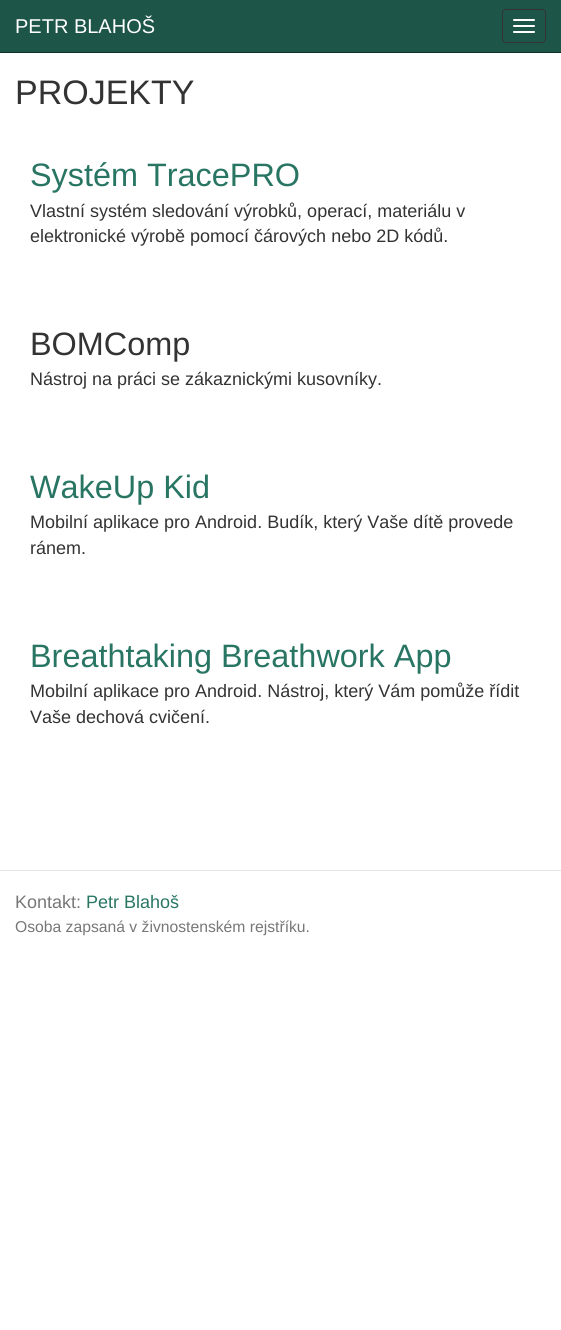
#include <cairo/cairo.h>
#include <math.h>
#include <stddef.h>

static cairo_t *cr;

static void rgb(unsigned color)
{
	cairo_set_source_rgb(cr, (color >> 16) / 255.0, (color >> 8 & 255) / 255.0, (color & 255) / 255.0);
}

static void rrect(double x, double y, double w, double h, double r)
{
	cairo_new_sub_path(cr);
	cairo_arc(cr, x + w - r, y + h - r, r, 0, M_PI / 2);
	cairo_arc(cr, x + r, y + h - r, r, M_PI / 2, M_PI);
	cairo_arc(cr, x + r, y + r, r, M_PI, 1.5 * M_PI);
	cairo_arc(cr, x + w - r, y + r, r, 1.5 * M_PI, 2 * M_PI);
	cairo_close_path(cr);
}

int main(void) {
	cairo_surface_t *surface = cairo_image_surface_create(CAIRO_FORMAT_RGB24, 561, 1330);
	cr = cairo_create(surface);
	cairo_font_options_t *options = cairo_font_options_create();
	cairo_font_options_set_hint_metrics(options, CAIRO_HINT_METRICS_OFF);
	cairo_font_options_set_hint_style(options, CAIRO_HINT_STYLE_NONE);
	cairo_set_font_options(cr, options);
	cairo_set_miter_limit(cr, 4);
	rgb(0xffffff);
	cairo_paint(cr);
	rgb(0x1d5548);
	cairo_rectangle(cr, 0, 0, 561, 52);
	cairo_fill(cr);
	rgb(0x102f28);
	cairo_rectangle(cr, 0, 52, 561, 1);
	cairo_fill(cr);
	rrect(502.5, 9.5, 43, 33, 3.5);
	rgb(0x333333);
	cairo_set_line_width(cr, 1);
	cairo_stroke(cr);
	rgb(0xffffff);
	rrect(513, 19, 22, 2, 1);
	cairo_fill(cr);
	rrect(513, 25, 22, 2, 1);
	cairo_fill(cr);
	rrect(513, 31, 22, 2, 1);
	cairo_fill(cr);
	rgb(0xe5e5e5);
	cairo_rectangle(cr, 0, 870, 561, 1);
	cairo_fill(cr);
	cairo_select_font_face(cr, "Liberation Sans", CAIRO_FONT_SLANT_NORMAL, CAIRO_FONT_WEIGHT_NORMAL);
	cairo_set_font_size(cr, 20);
	rgb(0xffffff);
	cairo_move_to(cr, 15, 33);
	cairo_show_text(cr, "PETR BLAHOŠ");
	cairo_set_font_size(cr, 34);
	rgb(0x333333);
	cairo_move_to(cr, 15, 104);
	cairo_show_text(cr, "PROJEKTY");
	cairo_set_font_size(cr, 32.4);
	rgb(0x287563);
	cairo_move_to(cr, 30, 186);
	cairo_show_text(cr, "Systém TracePRO");
	cairo_set_font_size(cr, 18);
	rgb(0x333333);
	cairo_move_to(cr, 30, 217);
	cairo_show_text(cr, "Vlastní systém sledování výrobků, operací, materiálu v");
	cairo_move_to(cr, 30, 242);
	cairo_show_text(cr, "elektronické výrobě pomocí čárových nebo 2D kódů.");
	cairo_set_font_size(cr, 32.4);
	cairo_move_to(cr, 30, 355);
	cairo_show_text(cr, "BOMComp");
	cairo_set_font_size(cr, 18);
	cairo_move_to(cr, 30, 385);
	cairo_show_text(cr, "Nástroj na práci se zákaznickými kusovníky.");
	cairo_set_font_size(cr, 32.4);
	rgb(0x287563);
	cairo_move_to(cr, 30, 498);
	cairo_show_text(cr, "WakeUp Kid");
	cairo_set_font_size(cr, 18);
	rgb(0x333333);
	cairo_move_to(cr, 30, 528);
	cairo_show_text(cr, "Mobilní aplikace pro Android. Budík, který Vaše dítě provede");
	cairo_move_to(cr, 30, 554);
	cairo_show_text(cr, "ránem.");
	cairo_set_font_size(cr, 32.4);
	rgb(0x287563);
	cairo_move_to(cr, 30, 667);
	cairo_show_text(cr, "Breathtaking Breathwork App");
	cairo_set_font_size(cr, 18);
	rgb(0x333333);
	cairo_move_to(cr, 30, 697);
	cairo_show_text(cr, "Mobilní aplikace pro Android. Nástroj, který Vám pomůže řídit");
	cairo_move_to(cr, 30, 723);
	cairo_show_text(cr, "Vaše dechová cvičení.");
	rgb(0x777777);
	cairo_move_to(cr, 15, 908);
	cairo_show_text(cr, "Kontakt:");
	rgb(0x287563);
	cairo_move_to(cr, 86, 908);
	cairo_show_text(cr, "Petr Blahoš");
	cairo_set_font_size(cr, 15.7);
	rgb(0x777777);
	cairo_move_to(cr, 15, 932);
	cairo_show_text(cr, "Osoba zapsaná v živnostenském rejstříku.");
	cairo_surface_write_to_png(surface, "page.png");
	cairo_font_options_destroy(options);
	cairo_destroy(cr);
	cairo_surface_destroy(surface);
	return 0;
}
